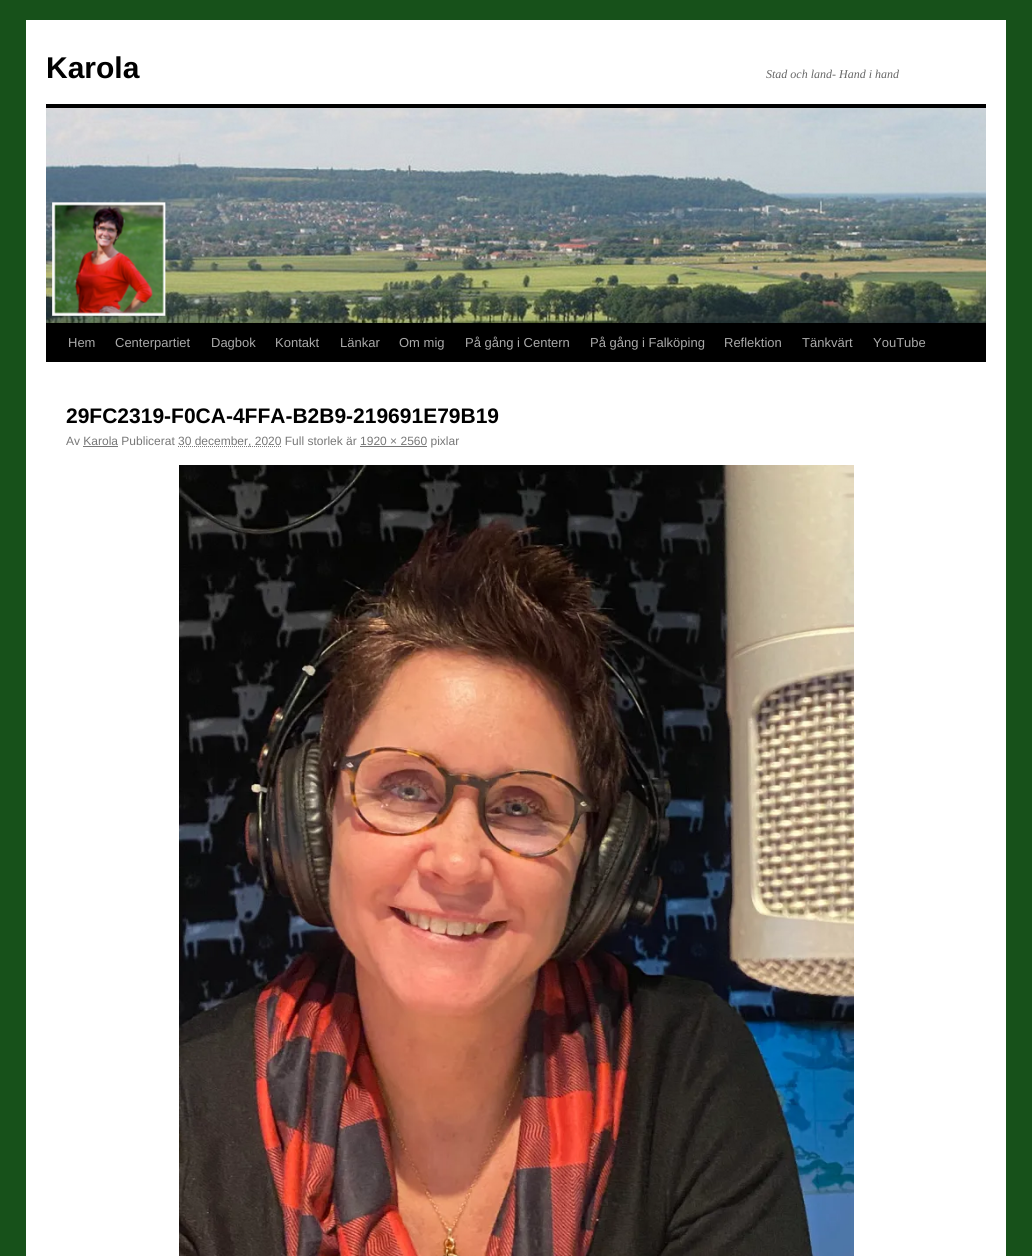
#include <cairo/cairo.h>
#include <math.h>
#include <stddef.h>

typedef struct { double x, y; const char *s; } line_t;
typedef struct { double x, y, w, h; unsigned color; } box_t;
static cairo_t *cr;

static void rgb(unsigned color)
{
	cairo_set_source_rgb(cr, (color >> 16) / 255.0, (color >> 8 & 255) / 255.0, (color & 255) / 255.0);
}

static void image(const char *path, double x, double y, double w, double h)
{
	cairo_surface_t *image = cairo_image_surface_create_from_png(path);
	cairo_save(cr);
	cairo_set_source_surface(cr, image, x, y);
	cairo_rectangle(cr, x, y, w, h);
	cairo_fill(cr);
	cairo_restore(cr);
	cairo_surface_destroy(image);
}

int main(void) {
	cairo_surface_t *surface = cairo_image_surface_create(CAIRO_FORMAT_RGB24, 1032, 1256);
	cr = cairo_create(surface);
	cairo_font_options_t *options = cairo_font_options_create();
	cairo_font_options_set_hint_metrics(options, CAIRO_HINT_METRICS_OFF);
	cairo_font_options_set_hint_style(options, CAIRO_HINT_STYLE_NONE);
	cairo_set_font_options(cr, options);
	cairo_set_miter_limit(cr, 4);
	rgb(0x17511a);
	cairo_paint(cr);
	{
		static const box_t items[] = {
			{26, 20, 980, 1236, 0xffffff},
			{46, 104, 940, 4, 0x000000},
			{46, 323, 940, 39, 0x000000},
		};
		for (size_t i = 0; i < sizeof items / sizeof *items; i++) {
			rgb(items[i].color);
			cairo_rectangle(cr, items[i].x, items[i].y, items[i].w, items[i].h);
			cairo_fill(cr);
		}
	}
	image("img/1.png", 46, 108, 940, 215);
	cairo_new_path(cr);
	cairo_move_to(cr, 178, 446.5);
	cairo_line_to(cr, 281.5, 446.5);
	rgb(0x777777);
	cairo_set_line_width(cr, 1);
	cairo_set_dash(cr, (double[]){1, 1}, 2, 0);
	cairo_stroke(cr);
	cairo_rectangle(cr, 83, 446, 35, 1);
	cairo_fill(cr);
	cairo_rectangle(cr, 360, 446, 67, 1);
	cairo_fill(cr);
	image("img/2.png", 179, 465, 675, 791);
	cairo_select_font_face(cr, "Liberation Sans", CAIRO_FONT_SLANT_NORMAL, CAIRO_FONT_WEIGHT_BOLD);
	cairo_set_font_size(cr, 30);
	rgb(0x000000);
	cairo_move_to(cr, 46, 78);
	cairo_show_text(cr, "Karola");
	cairo_select_font_face(cr, "Liberation Serif", CAIRO_FONT_SLANT_ITALIC, CAIRO_FONT_WEIGHT_NORMAL);
	cairo_set_font_size(cr, 12);
	rgb(0x666666);
	cairo_move_to(cr, 766, 78);
	cairo_show_text(cr, "Stad och land- Hand i hand");
	cairo_select_font_face(cr, "Liberation Sans", CAIRO_FONT_SLANT_NORMAL, CAIRO_FONT_WEIGHT_NORMAL);
	cairo_set_font_size(cr, 13);
	rgb(0xaaaaaa);
	{
		static const line_t items[] = {
			{68, 347, "Hem"},
			{115, 347, "Centerpartiet"},
			{211, 347, "Dagbok"},
			{275, 347, "Kontakt"},
			{340, 347, "Länkar"},
			{399, 347, "Om mig"},
			{465, 347, "På gång i Centern"},
			{590, 347, "På gång i Falköping"},
			{724, 347, "Reflektion"},
			{802, 347, "Tänkvärt"},
			{873, 347, "YouTube"},
		};
		for (size_t i = 0; i < sizeof items / sizeof *items; i++) {
			cairo_move_to(cr, items[i].x, items[i].y);
			cairo_show_text(cr, items[i].s);
		}
	}
	cairo_select_font_face(cr, "Liberation Sans", CAIRO_FONT_SLANT_NORMAL, CAIRO_FONT_WEIGHT_BOLD);
	cairo_set_font_size(cr, 21);
	rgb(0x000000);
	cairo_move_to(cr, 66, 423);
	cairo_show_text(cr, "29FC2319-F0CA-4FFA-B2B9-219691E79B19");
	cairo_select_font_face(cr, "Liberation Sans", CAIRO_FONT_SLANT_NORMAL, CAIRO_FONT_WEIGHT_NORMAL);
	cairo_set_font_size(cr, 12);
	rgb(0x777777);
	cairo_move_to(cr, 66, 445);
	cairo_show_text(cr, "Av Karola Publicerat");
	cairo_move_to(cr, 178, 445);
	cairo_show_text(cr, "30 december, 2020 Full storlek är 1920 × 2560 pixlar");
	cairo_surface_write_to_png(surface, "page.png");
	cairo_font_options_destroy(options);
	cairo_destroy(cr);
	cairo_surface_destroy(surface);
	return 0;
}
